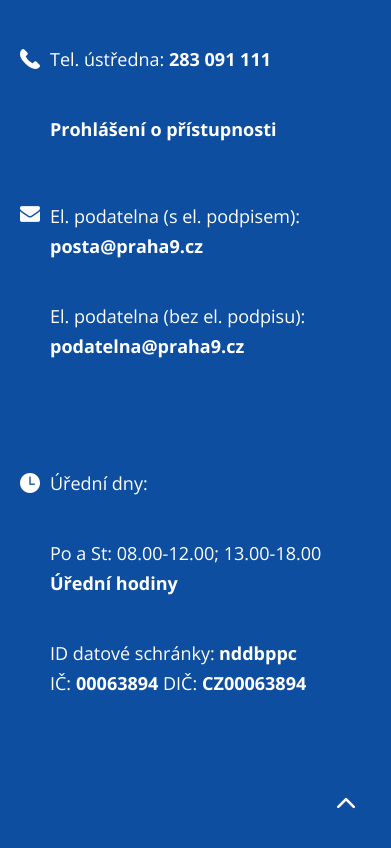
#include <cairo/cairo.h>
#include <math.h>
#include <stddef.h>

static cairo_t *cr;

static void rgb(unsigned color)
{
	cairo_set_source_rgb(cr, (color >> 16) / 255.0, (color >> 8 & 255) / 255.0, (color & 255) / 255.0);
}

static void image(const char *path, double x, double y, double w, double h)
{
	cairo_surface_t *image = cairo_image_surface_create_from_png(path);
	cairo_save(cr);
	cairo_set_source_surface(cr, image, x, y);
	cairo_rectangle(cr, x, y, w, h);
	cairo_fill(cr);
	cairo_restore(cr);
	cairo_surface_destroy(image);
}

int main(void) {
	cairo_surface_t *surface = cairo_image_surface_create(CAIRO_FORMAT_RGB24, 391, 848);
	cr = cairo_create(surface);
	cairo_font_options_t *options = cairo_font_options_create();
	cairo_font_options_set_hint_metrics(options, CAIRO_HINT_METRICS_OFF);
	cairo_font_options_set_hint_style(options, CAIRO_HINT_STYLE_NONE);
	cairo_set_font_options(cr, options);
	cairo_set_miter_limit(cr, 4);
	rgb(0x0d4ea0);
	cairo_paint(cr);
	image("img/1.png", 20, 49, 20, 20);
	image("img/2.png", 20, 206, 20, 16);
	image("img/3.png", 20, 473, 20, 20);
	image("img/4.png", 337, 797, 18, 12);
	cairo_select_font_face(cr, "Open Sans", CAIRO_FONT_SLANT_NORMAL, CAIRO_FONT_WEIGHT_NORMAL);
	cairo_set_font_size(cr, 18);
	rgb(0xffffff);
	cairo_move_to(cr, 50, 66);
	cairo_show_text(cr, "Tel. ústředna:");
	cairo_select_font_face(cr, "Open Sans", CAIRO_FONT_SLANT_NORMAL, CAIRO_FONT_WEIGHT_BOLD);
	cairo_move_to(cr, 169, 66);
	cairo_show_text(cr, "283 091 111");
	cairo_move_to(cr, 50, 136);
	cairo_show_text(cr, "Prohlášení o přístupnosti");
	cairo_select_font_face(cr, "Open Sans", CAIRO_FONT_SLANT_NORMAL, CAIRO_FONT_WEIGHT_NORMAL);
	cairo_move_to(cr, 50, 223);
	cairo_show_text(cr, "El. podatelna (s el. podpisem):");
	cairo_select_font_face(cr, "Open Sans", CAIRO_FONT_SLANT_NORMAL, CAIRO_FONT_WEIGHT_BOLD);
	cairo_move_to(cr, 50, 253);
	cairo_show_text(cr, "posta@praha9.cz");
	cairo_select_font_face(cr, "Open Sans", CAIRO_FONT_SLANT_NORMAL, CAIRO_FONT_WEIGHT_NORMAL);
	cairo_move_to(cr, 50, 323);
	cairo_show_text(cr, "El. podatelna (bez el. podpisu):");
	cairo_select_font_face(cr, "Open Sans", CAIRO_FONT_SLANT_NORMAL, CAIRO_FONT_WEIGHT_BOLD);
	cairo_move_to(cr, 50, 353);
	cairo_show_text(cr, "podatelna@praha9.cz");
	cairo_select_font_face(cr, "Open Sans", CAIRO_FONT_SLANT_NORMAL, CAIRO_FONT_WEIGHT_NORMAL);
	cairo_move_to(cr, 50, 490);
	cairo_show_text(cr, "Úřední dny:");
	cairo_move_to(cr, 50, 560);
	cairo_show_text(cr, "Po a St: 08.00-12.00; 13.00-18.00");
	cairo_select_font_face(cr, "Open Sans", CAIRO_FONT_SLANT_NORMAL, CAIRO_FONT_WEIGHT_BOLD);
	cairo_move_to(cr, 50, 590);
	cairo_show_text(cr, "Úřední hodiny");
	cairo_select_font_face(cr, "Open Sans", CAIRO_FONT_SLANT_NORMAL, CAIRO_FONT_WEIGHT_NORMAL);
	cairo_move_to(cr, 50, 660);
	cairo_show_text(cr, "ID datové schránky:");
	cairo_select_font_face(cr, "Open Sans", CAIRO_FONT_SLANT_NORMAL, CAIRO_FONT_WEIGHT_BOLD);
	cairo_move_to(cr, 219, 660);
	cairo_show_text(cr, "nddbppc");
	cairo_select_font_face(cr, "Open Sans", CAIRO_FONT_SLANT_NORMAL, CAIRO_FONT_WEIGHT_NORMAL);
	cairo_move_to(cr, 50, 690);
	cairo_show_text(cr, "IČ:");
	cairo_select_font_face(cr, "Open Sans", CAIRO_FONT_SLANT_NORMAL, CAIRO_FONT_WEIGHT_BOLD);
	cairo_move_to(cr, 76, 690);
	cairo_show_text(cr, "00063894");
	cairo_select_font_face(cr, "Open Sans", CAIRO_FONT_SLANT_NORMAL, CAIRO_FONT_WEIGHT_NORMAL);
	cairo_move_to(cr, 163, 690);
	cairo_show_text(cr, "DIČ:");
	cairo_select_font_face(cr, "Open Sans", CAIRO_FONT_SLANT_NORMAL, CAIRO_FONT_WEIGHT_BOLD);
	cairo_move_to(cr, 202, 690);
	cairo_show_text(cr, "CZ00063894");
	cairo_surface_write_to_png(surface, "page.png");
	cairo_font_options_destroy(options);
	cairo_destroy(cr);
	cairo_surface_destroy(surface);
	return 0;
}
